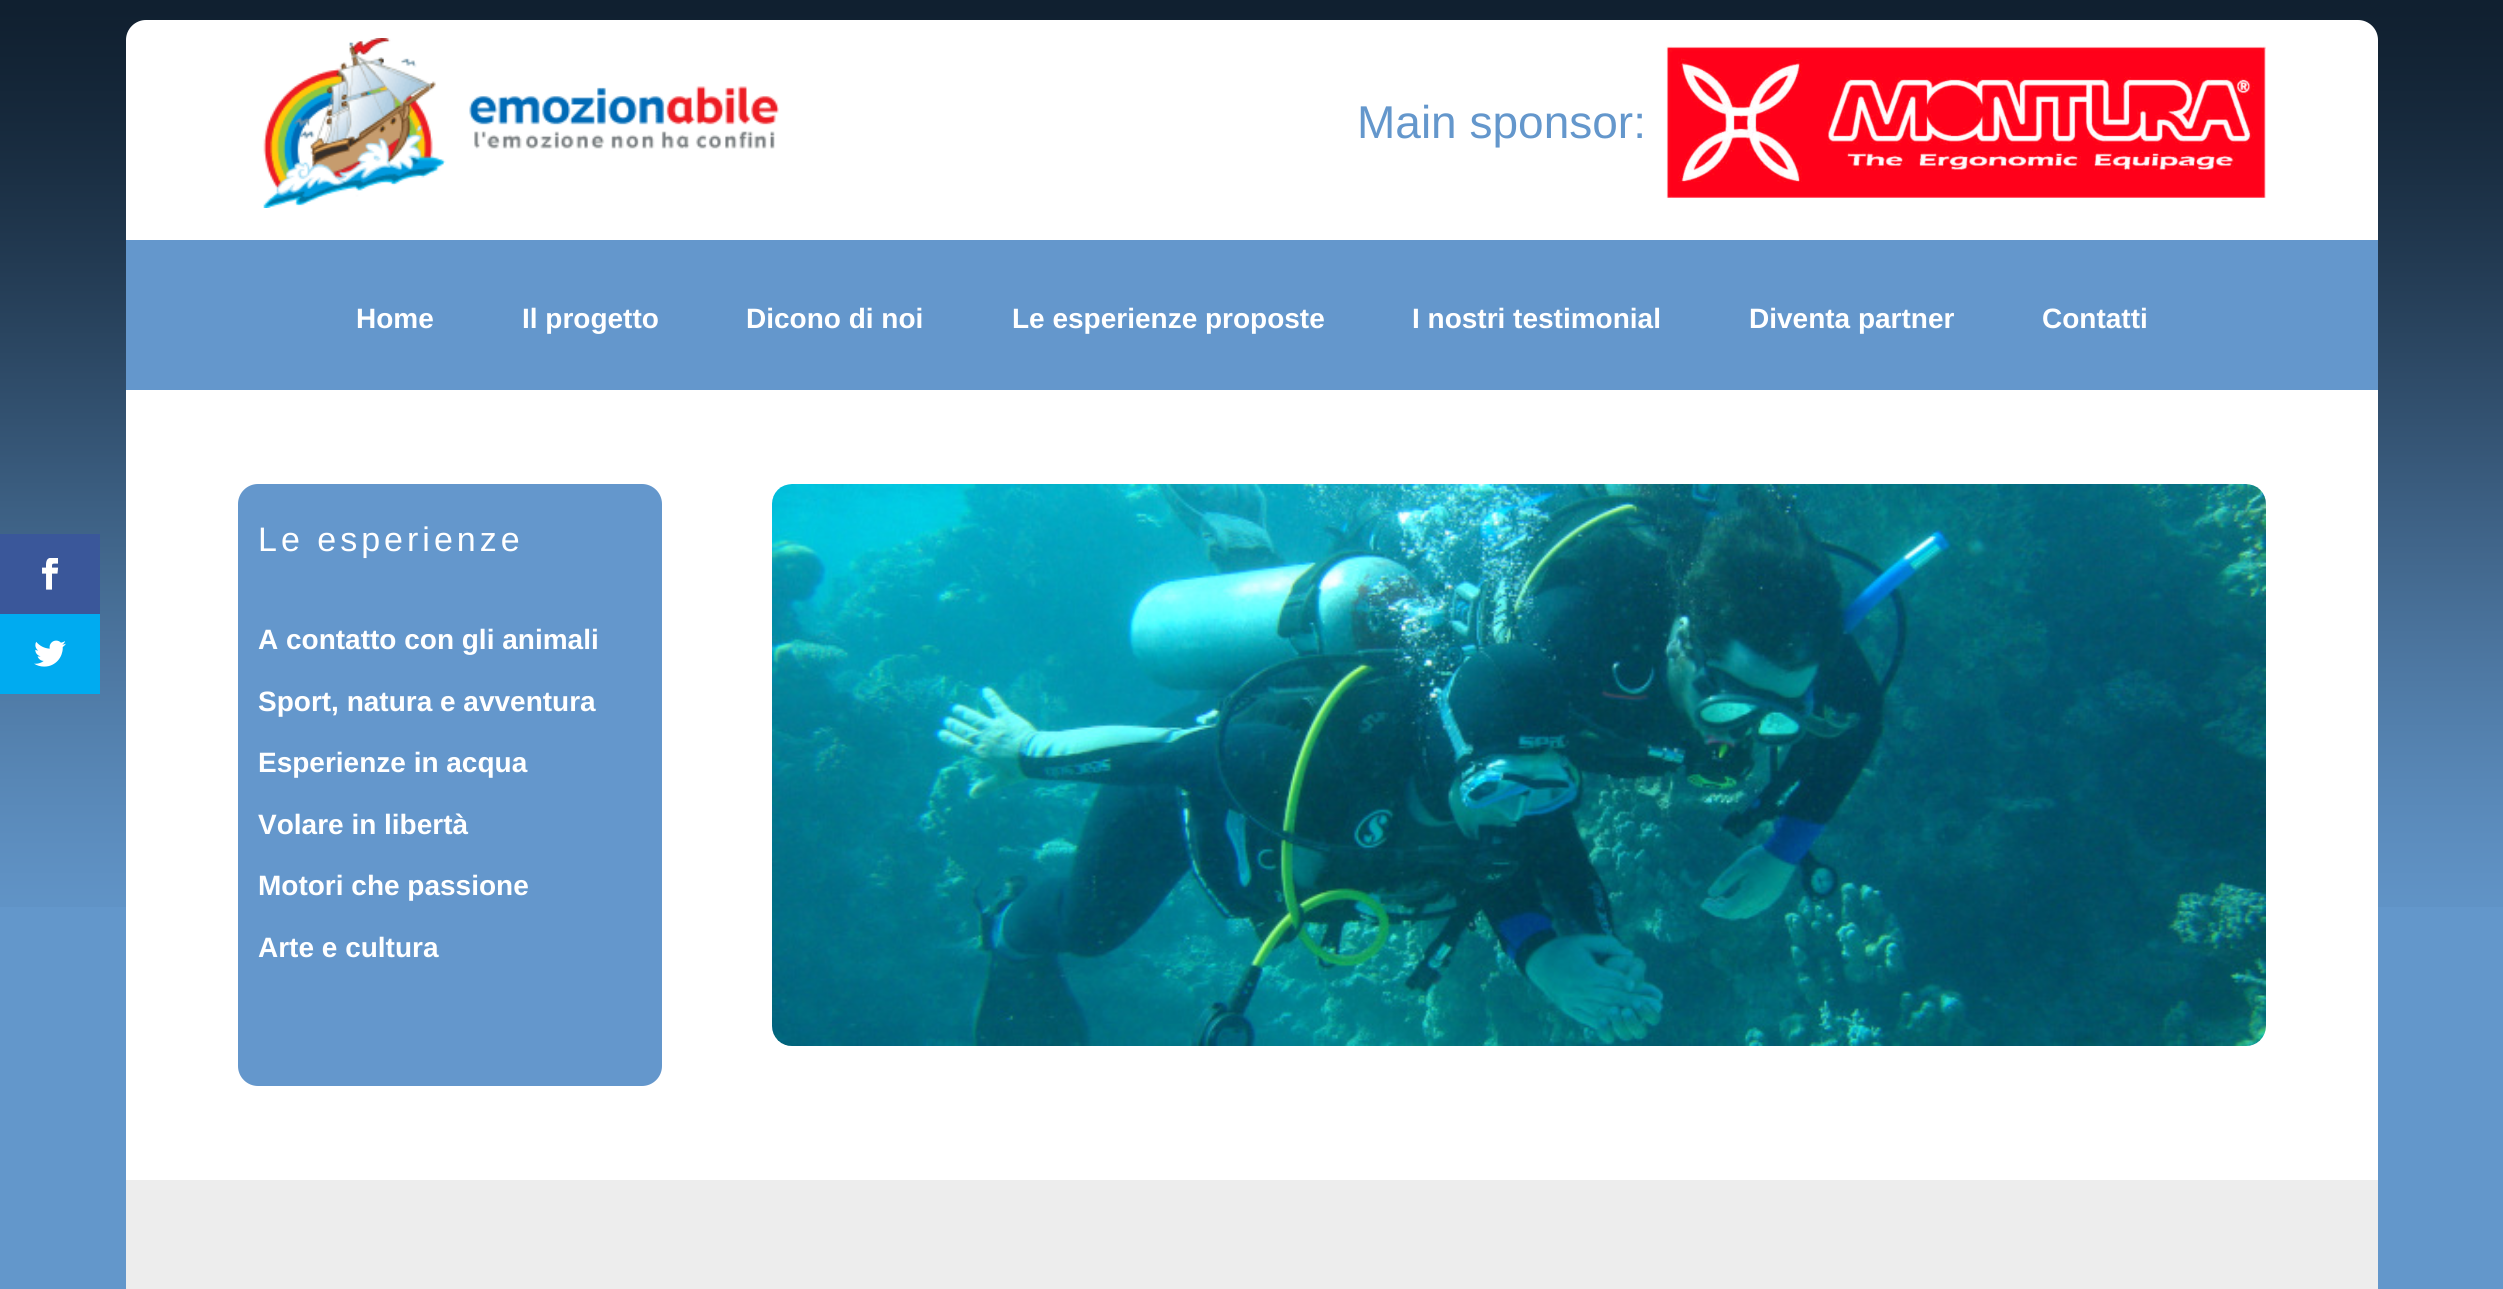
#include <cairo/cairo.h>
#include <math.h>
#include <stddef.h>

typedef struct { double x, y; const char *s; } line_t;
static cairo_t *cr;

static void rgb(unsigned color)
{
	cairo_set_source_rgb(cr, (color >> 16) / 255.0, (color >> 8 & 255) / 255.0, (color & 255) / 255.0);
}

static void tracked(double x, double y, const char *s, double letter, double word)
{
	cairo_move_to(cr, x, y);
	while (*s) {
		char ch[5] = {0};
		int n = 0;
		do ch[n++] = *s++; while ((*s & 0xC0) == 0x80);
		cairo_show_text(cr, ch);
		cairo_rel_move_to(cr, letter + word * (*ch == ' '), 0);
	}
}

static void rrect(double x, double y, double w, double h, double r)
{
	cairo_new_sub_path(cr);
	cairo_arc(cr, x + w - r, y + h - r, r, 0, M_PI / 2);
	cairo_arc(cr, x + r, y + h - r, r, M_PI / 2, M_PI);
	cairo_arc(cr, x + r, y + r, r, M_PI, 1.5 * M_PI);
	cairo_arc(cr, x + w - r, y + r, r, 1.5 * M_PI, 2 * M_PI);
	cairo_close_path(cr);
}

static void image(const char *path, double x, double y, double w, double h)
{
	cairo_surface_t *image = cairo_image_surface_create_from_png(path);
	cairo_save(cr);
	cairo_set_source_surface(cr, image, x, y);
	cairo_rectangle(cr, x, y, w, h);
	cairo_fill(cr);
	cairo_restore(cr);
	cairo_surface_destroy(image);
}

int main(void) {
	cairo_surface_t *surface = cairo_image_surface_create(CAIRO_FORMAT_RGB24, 2503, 1289);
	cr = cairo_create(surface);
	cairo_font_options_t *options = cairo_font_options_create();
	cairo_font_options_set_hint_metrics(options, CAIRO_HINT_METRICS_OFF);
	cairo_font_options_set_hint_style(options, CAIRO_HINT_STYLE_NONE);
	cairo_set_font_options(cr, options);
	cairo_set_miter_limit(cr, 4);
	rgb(0x6397cb);
	cairo_paint(cr);
	image("img/1.png", 0, 0, 2503, 907);
	rgb(0x3a579a);
	cairo_rectangle(cr, 0, 534, 100, 80);
	cairo_fill(cr);
	image("img/2.png", 42, 558, 17, 32);
	rgb(0x00abf0);
	cairo_rectangle(cr, 0, 614, 100, 80);
	cairo_fill(cr);
	image("img/3.png", 34, 640, 32, 27);
	rgb(0xffffff);
	cairo_new_path(cr);
	cairo_move_to(cr, 146, 20);
	cairo_line_to(cr, 2358, 20);
	cairo_curve_to(cr, 2369, 20, 2378, 29, 2378, 40);
	cairo_line_to(cr, 2378, 240);
	cairo_line_to(cr, 126, 240);
	cairo_line_to(cr, 126, 40);
	cairo_curve_to(cr, 126, 29, 135, 20, 146, 20);
	cairo_close_path(cr);
	cairo_fill(cr);
	image("img/4.png", 263, 38, 516, 170);
	image("img/5.png", 1666, 46, 600, 152);
	cairo_rectangle(cr, 126, 390, 2252, 790);
	cairo_fill(cr);
	rgb(0x6497cc);
	cairo_rectangle(cr, 126, 240, 2252, 150);
	cairo_fill(cr);
	rrect(238, 484, 424, 602, 20);
	cairo_fill(cr);
	image("img/6.png", 772, 484, 1494, 562);
	rgb(0xededed);
	cairo_rectangle(cr, 126, 1180, 2252, 109);
	cairo_fill(cr);
	cairo_select_font_face(cr, "Liberation Sans", CAIRO_FONT_SLANT_NORMAL, CAIRO_FONT_WEIGHT_NORMAL);
	cairo_set_font_size(cr, 46);
	rgb(0x6497cc);
	cairo_move_to(cr, 1357, 138);
	cairo_show_text(cr, "Main sponsor:");
	cairo_select_font_face(cr, "Liberation Sans", CAIRO_FONT_SLANT_NORMAL, CAIRO_FONT_WEIGHT_BOLD);
	cairo_set_font_size(cr, 28);
	rgb(0xffffff);
	{
		static const line_t items[] = {
			{356, 328, "Home"},
			{522, 328, "Il progetto"},
			{746, 328, "Dicono di noi"},
			{1012, 328, "Le esperienze proposte"},
			{1412, 328, "I nostri testimonial"},
			{1749, 328, "Diventa partner"},
			{2042, 328, "Contatti"},
		};
		for (size_t i = 0; i < sizeof items / sizeof *items; i++) {
			cairo_move_to(cr, items[i].x, items[i].y);
			cairo_show_text(cr, items[i].s);
		}
	}
	cairo_select_font_face(cr, "Liberation Sans", CAIRO_FONT_SLANT_NORMAL, CAIRO_FONT_WEIGHT_NORMAL);
	cairo_set_font_size(cr, 34);
	tracked(258, 551, "Le esperienze", 4, 0);
	cairo_select_font_face(cr, "Liberation Sans", CAIRO_FONT_SLANT_NORMAL, CAIRO_FONT_WEIGHT_BOLD);
	cairo_set_font_size(cr, 28);
	{
		static const line_t items[] = {
			{258, 649, "A contatto con gli animali"},
			{258, 711, "Sport, natura e avventura"},
			{258, 772, "Esperienze in acqua"},
			{258, 834, "Volare in libertà"},
			{258, 895, "Motori che passione"},
			{258, 957, "Arte e cultura"},
		};
		for (size_t i = 0; i < sizeof items / sizeof *items; i++) {
			cairo_move_to(cr, items[i].x, items[i].y);
			cairo_show_text(cr, items[i].s);
		}
	}
	cairo_surface_write_to_png(surface, "page.png");
	cairo_font_options_destroy(options);
	cairo_destroy(cr);
	cairo_surface_destroy(surface);
	return 0;
}
